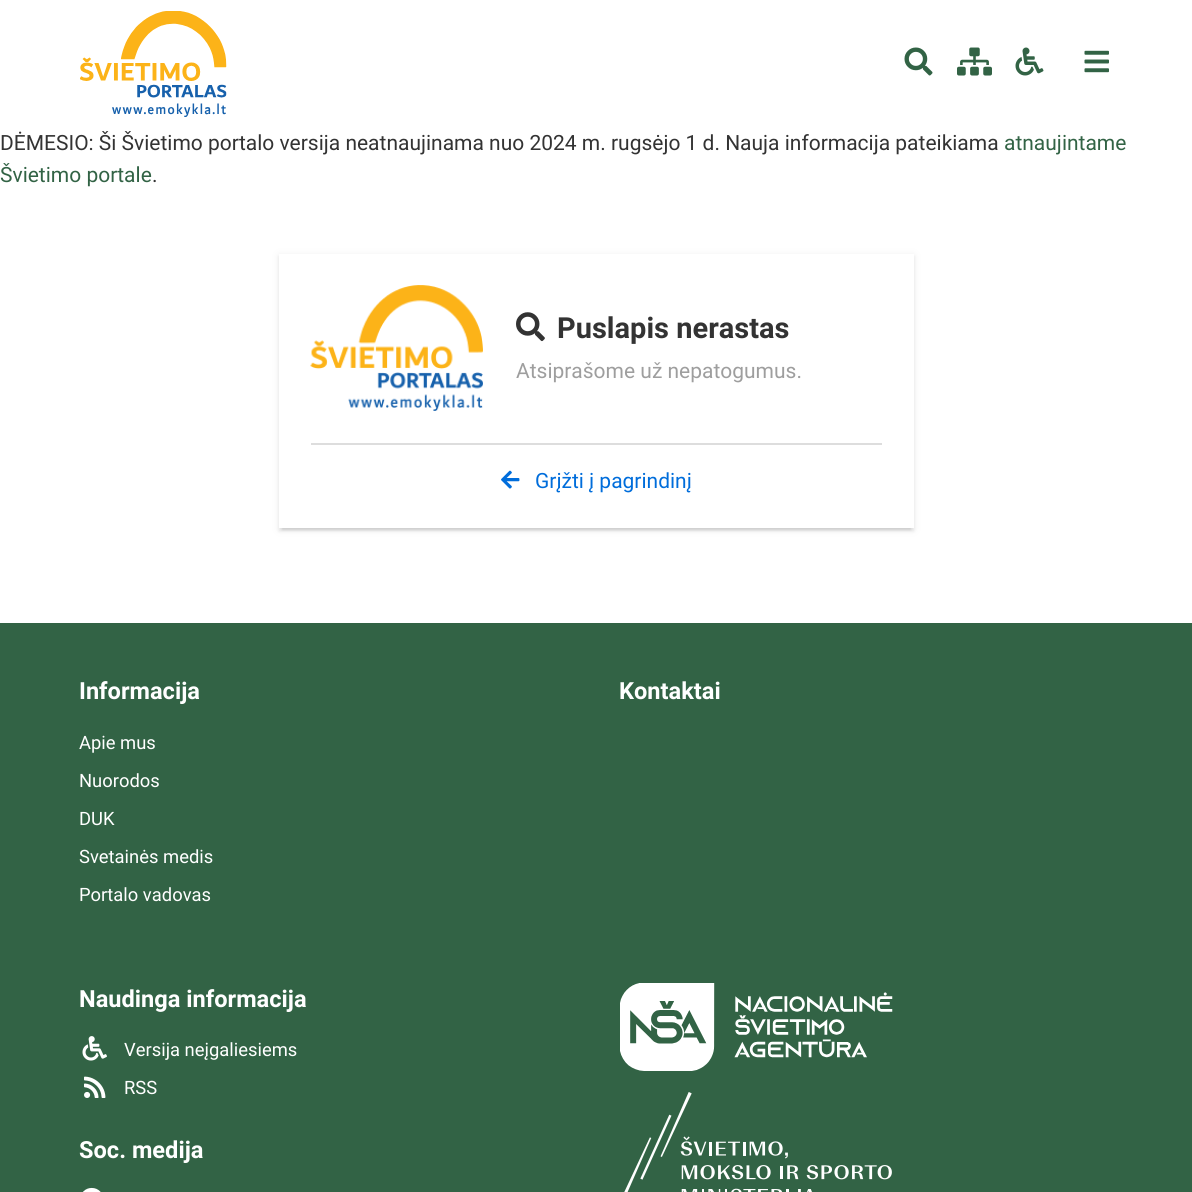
#include <cairo/cairo.h>
#include <math.h>
#include <stddef.h>

typedef struct { double x, y; const char *s; } line_t;
static cairo_t *cr;

static void rgb(unsigned color)
{
	cairo_set_source_rgb(cr, (color >> 16) / 255.0, (color >> 8 & 255) / 255.0, (color & 255) / 255.0);
}

static void rrect(double x, double y, double w, double h, double r)
{
	cairo_new_sub_path(cr);
	cairo_arc(cr, x + w - r, y + h - r, r, 0, M_PI / 2);
	cairo_arc(cr, x + r, y + h - r, r, M_PI / 2, M_PI);
	cairo_arc(cr, x + r, y + r, r, M_PI, 1.5 * M_PI);
	cairo_arc(cr, x + w - r, y + r, r, 1.5 * M_PI, 2 * M_PI);
	cairo_close_path(cr);
}

static void soft_shadow(double x, double y, double w, double h, double r, double blur, double alpha)
{
	cairo_push_group_with_content(cr, CAIRO_CONTENT_ALPHA);
	cairo_set_operator(cr, CAIRO_OPERATOR_SOURCE);
	for (int i = 15; i >= -15 && fmin(w, h) + blur * i / 3 > 0; i -= 2) {
		double e = blur * i / 6;
		cairo_set_source_rgba(cr, 0, 0, 0, alpha * erfc((i - 1) / 8.5) / 2);
		rrect(x - e, y - e, w + 2 * e, h + 2 * e, fmax(0, fmin(r + e + blur * .6, fmin(w, h) / 2 + e)));
		cairo_fill(cr);
	}
	cairo_pattern_t *soft = cairo_pop_group(cr);
	cairo_mask(cr, soft);
	cairo_pattern_destroy(soft);
}

static void image(const char *path, double x, double y, double w, double h)
{
	cairo_surface_t *image = cairo_image_surface_create_from_png(path);
	cairo_save(cr);
	cairo_set_source_surface(cr, image, x, y);
	cairo_rectangle(cr, x, y, w, h);
	cairo_fill(cr);
	cairo_restore(cr);
	cairo_surface_destroy(image);
}

int main(void) {
	cairo_surface_t *surface = cairo_image_surface_create(CAIRO_FORMAT_RGB24, 1192, 1192);
	cr = cairo_create(surface);
	cairo_font_options_t *options = cairo_font_options_create();
	cairo_font_options_set_hint_metrics(options, CAIRO_HINT_METRICS_OFF);
	cairo_font_options_set_hint_style(options, CAIRO_HINT_STYLE_NONE);
	cairo_set_font_options(cr, options);
	cairo_set_miter_limit(cr, 4);
	rgb(0xffffff);
	cairo_paint(cr);
	image("img/1.png", 80, 11, 147, 106);
	image("img/2.png", 904, 47, 29, 29);
	image("img/3.png", 957, 47, 35, 29);
	image("img/4.png", 1015, 47, 29, 29);
	image("img/5.png", 1084, 50, 25, 23);
	rgb(0x787878);
	soft_shadow(279, 255, 635, 275, 0, 4, 0.12);
	soft_shadow(282, 261, 629, 269, 0, 1, 0.2);
	soft_shadow(279, 257, 635, 274, 0, 1.5, 0.14);
	rgb(0xffffff);
	cairo_rectangle(cr, 279, 254, 635, 274);
	cairo_fill(cr);
	image("img/6.png", 310, 285, 173, 126);
	image("img/7.png", 516, 312, 29, 30);
	rgb(0xdddddd);
	cairo_rectangle(cr, 311, 443, 571, 2);
	cairo_fill(cr);
	image("img/8.png", 501, 470, 19, 19);
	rgb(0x326345);
	cairo_rectangle(cr, 0, 623, 1192, 569);
	cairo_fill(cr);
	image("img/9.png", 82, 1036, 25, 25);
	image("img/10.png", 84, 1076, 22, 22);
	image("img/11.png", 83, 1187, 18, 5);
	image("img/12.png", 620, 983, 273, 88);
	image("img/13.png", 624, 1092, 268, 100);
	cairo_select_font_face(cr, "Roboto", CAIRO_FONT_SLANT_NORMAL, CAIRO_FONT_WEIGHT_NORMAL);
	cairo_set_font_size(cr, 21);
	rgb(0x333333);
	cairo_move_to(cr, 0, 150);
	cairo_show_text(cr, "DĖMESIO: Ši Švietimo portalo versija neatnaujinama nuo 2024 m. rugsėjo 1 d. Nauja informacija pateikiama");
	rgb(0x326345);
	cairo_move_to(cr, 1004, 150);
	cairo_show_text(cr, "atnaujintame");
	cairo_move_to(cr, 0, 182);
	cairo_show_text(cr, "Švietimo portale");
	rgb(0x333333);
	cairo_move_to(cr, 152, 182);
	cairo_show_text(cr, ".");
	cairo_select_font_face(cr, "Roboto", CAIRO_FONT_SLANT_NORMAL, CAIRO_FONT_WEIGHT_BOLD);
	cairo_set_font_size(cr, 29);
	cairo_move_to(cr, 557, 338);
	cairo_show_text(cr, "Puslapis nerastas");
	cairo_select_font_face(cr, "Roboto", CAIRO_FONT_SLANT_NORMAL, CAIRO_FONT_WEIGHT_NORMAL);
	cairo_set_font_size(cr, 21);
	rgb(0x9e9e9e);
	cairo_move_to(cr, 516, 378);
	cairo_show_text(cr, "Atsiprašome už nepatogumus.");
	rgb(0x006ddb);
	cairo_move_to(cr, 535, 488);
	cairo_show_text(cr, "Grįžti į pagrindinį");
	cairo_select_font_face(cr, "Roboto", CAIRO_FONT_SLANT_NORMAL, CAIRO_FONT_WEIGHT_BOLD);
	cairo_set_font_size(cr, 23.6);
	rgb(0xffffff);
	cairo_move_to(cr, 79, 699);
	cairo_show_text(cr, "Informacija");
	cairo_select_font_face(cr, "Roboto", CAIRO_FONT_SLANT_NORMAL, CAIRO_FONT_WEIGHT_NORMAL);
	cairo_set_font_size(cr, 18.4);
	{
		static const line_t items[] = {
			{79, 749, "Apie mus"},
			{79, 787, "Nuorodos"},
			{79, 825, "DUK"},
			{79, 863, "Svetainės medis"},
			{79, 901, "Portalo vadovas"},
		};
		for (size_t i = 0; i < sizeof items / sizeof *items; i++) {
			cairo_move_to(cr, items[i].x, items[i].y);
			cairo_show_text(cr, items[i].s);
		}
	}
	cairo_select_font_face(cr, "Roboto", CAIRO_FONT_SLANT_NORMAL, CAIRO_FONT_WEIGHT_BOLD);
	cairo_set_font_size(cr, 23.6);
	cairo_move_to(cr, 619, 699);
	cairo_show_text(cr, "Kontaktai");
	cairo_move_to(cr, 79, 1007);
	cairo_show_text(cr, "Naudinga informacija");
	cairo_select_font_face(cr, "Roboto", CAIRO_FONT_SLANT_NORMAL, CAIRO_FONT_WEIGHT_NORMAL);
	cairo_set_font_size(cr, 18.4);
	cairo_move_to(cr, 124, 1056);
	cairo_show_text(cr, "Versija neįgaliesiems");
	cairo_move_to(cr, 124, 1094);
	cairo_show_text(cr, "RSS");
	cairo_select_font_face(cr, "Roboto", CAIRO_FONT_SLANT_NORMAL, CAIRO_FONT_WEIGHT_BOLD);
	cairo_set_font_size(cr, 23.6);
	cairo_move_to(cr, 79, 1158);
	cairo_show_text(cr, "Soc. medija");
	cairo_surface_write_to_png(surface, "page.png");
	cairo_font_options_destroy(options);
	cairo_destroy(cr);
	cairo_surface_destroy(surface);
	return 0;
}
